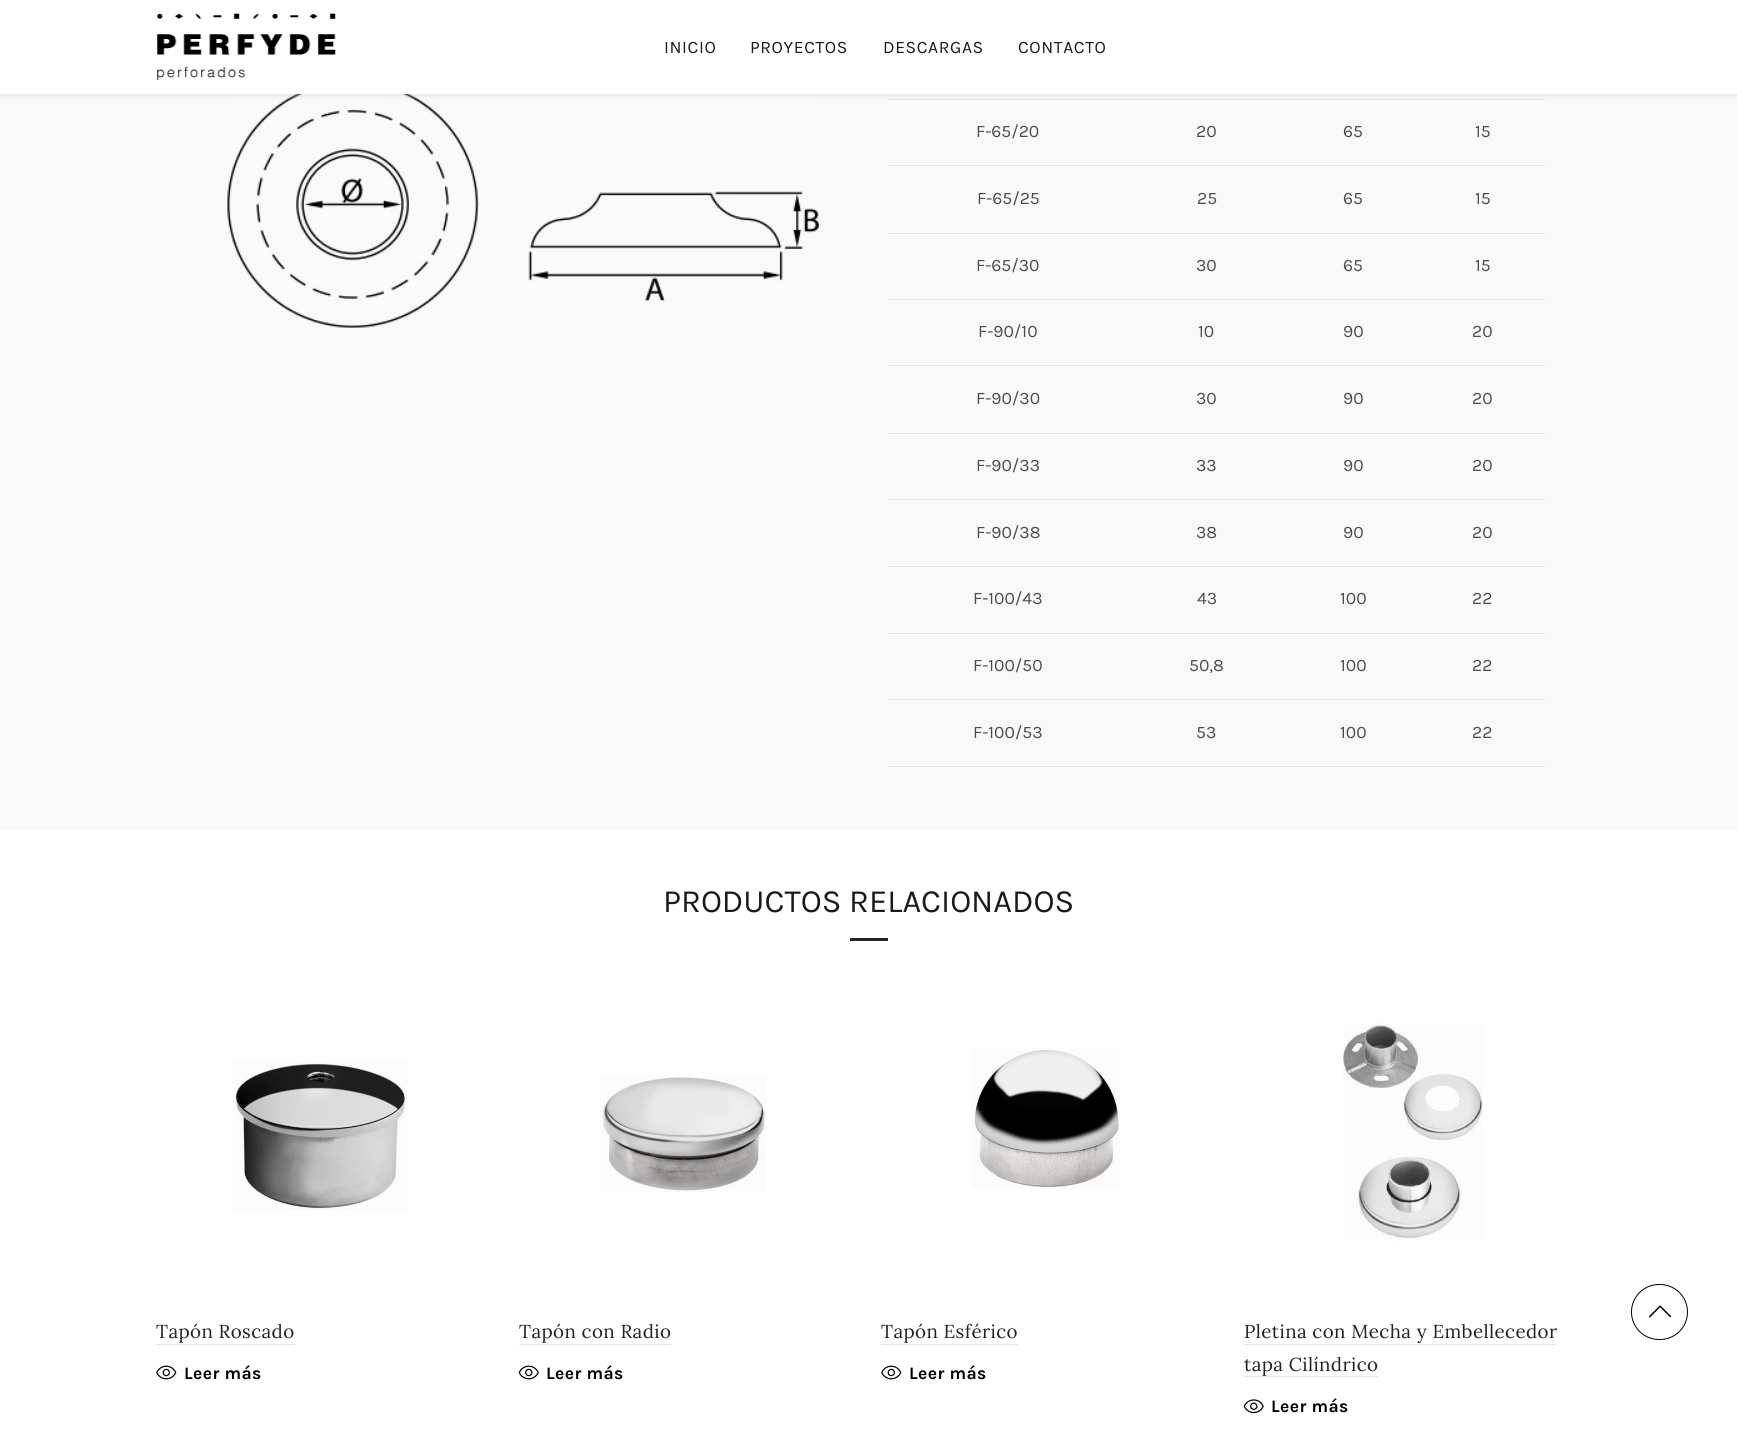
#include <cairo/cairo.h>
#include <math.h>
#include <stddef.h>

typedef struct { double x, y; const char *s; } line_t;
typedef struct { double x, y, w, h; unsigned color; } box_t;
static cairo_t *cr;

static void rgb(unsigned color)
{
	cairo_set_source_rgb(cr, (color >> 16) / 255.0, (color >> 8 & 255) / 255.0, (color & 255) / 255.0);
}

static void tracked(double x, double y, const char *s, double letter, double word)
{
	cairo_move_to(cr, x, y);
	while (*s) {
		char ch[5] = {0};
		int n = 0;
		do ch[n++] = *s++; while ((*s & 0xC0) == 0x80);
		cairo_show_text(cr, ch);
		cairo_rel_move_to(cr, letter + word * (*ch == ' '), 0);
	}
}

static void rrect(double x, double y, double w, double h, double r)
{
	cairo_new_sub_path(cr);
	cairo_arc(cr, x + w - r, y + h - r, r, 0, M_PI / 2);
	cairo_arc(cr, x + r, y + h - r, r, M_PI / 2, M_PI);
	cairo_arc(cr, x + r, y + r, r, M_PI, 1.5 * M_PI);
	cairo_arc(cr, x + w - r, y + r, r, 1.5 * M_PI, 2 * M_PI);
	cairo_close_path(cr);
}

static void soft_shadow(double x, double y, double w, double h, double r, double blur, double alpha)
{
	cairo_push_group_with_content(cr, CAIRO_CONTENT_ALPHA);
	cairo_set_operator(cr, CAIRO_OPERATOR_SOURCE);
	for (int i = 15; i >= -15 && fmin(w, h) + blur * i / 3 > 0; i -= 2) {
		double e = blur * i / 6;
		cairo_set_source_rgba(cr, 0, 0, 0, alpha * erfc((i - 1) / 8.5) / 2);
		rrect(x - e, y - e, w + 2 * e, h + 2 * e, fmax(0, fmin(r + e + blur * .6, fmin(w, h) / 2 + e)));
		cairo_fill(cr);
	}
	cairo_pattern_t *soft = cairo_pop_group(cr);
	cairo_mask(cr, soft);
	cairo_pattern_destroy(soft);
}

static void image(const char *path, double x, double y, double w, double h)
{
	cairo_surface_t *image = cairo_image_surface_create_from_png(path);
	cairo_save(cr);
	cairo_set_source_surface(cr, image, x, y);
	cairo_rectangle(cr, x, y, w, h);
	cairo_fill(cr);
	cairo_restore(cr);
	cairo_surface_destroy(image);
}

int main(void) {
	cairo_surface_t *surface = cairo_image_surface_create(CAIRO_FORMAT_RGB24, 1737, 1433);
	cr = cairo_create(surface);
	cairo_font_options_t *options = cairo_font_options_create();
	cairo_font_options_set_hint_metrics(options, CAIRO_HINT_METRICS_OFF);
	cairo_font_options_set_hint_style(options, CAIRO_HINT_STYLE_NONE);
	cairo_set_font_options(cr, options);
	cairo_set_miter_limit(cr, 4);
	rgb(0xffffff);
	cairo_paint(cr);
	rgb(0xf9f9f9);
	cairo_rectangle(cr, 0, 94, 1737, 736);
	cairo_fill(cr);
	image("img/2.png", 227, 94, 592, 234);
	rgb(0xe6e6e6);
	cairo_rectangle(cr, 888, 99, 657, 1);
	cairo_fill(cr);
	rgb(0xbebebe);
	soft_shadow(0, 1, 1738, 94, 0, 3, 0.5);
	rgb(0xffffff);
	cairo_rectangle(cr, 0, 0, 1737, 94);
	cairo_fill(cr);
	image("img/1.png", 157, 13, 179, 67);
	{
		static const box_t items[] = {
			{888, 165, 657, 1, 0xe6e6e6},
			{888, 233, 657, 1, 0xe6e6e6},
			{888, 299, 657, 1, 0xe6e6e6},
			{888, 365, 657, 1, 0xe6e6e6},
			{888, 433, 657, 1, 0xe6e6e6},
			{888, 499, 657, 1, 0xe6e6e6},
			{888, 566, 657, 1, 0xe6e6e6},
			{888, 633, 657, 1, 0xe6e6e6},
			{888, 699, 657, 1, 0xe6e6e6},
			{888, 766, 657, 1, 0xe6e6e6},
			{850, 938, 38, 3, 0x262626},
		};
		for (size_t i = 0; i < sizeof items / sizeof *items; i++) {
			rgb(items[i].color);
			cairo_rectangle(cr, items[i].x, items[i].y, items[i].w, items[i].h);
			cairo_fill(cr);
		}
	}
	image("img/3.png", 233, 1061, 175, 149);
	rgb(0xe6e6e6);
	cairo_rectangle(cr, 156, 1344, 139, 1);
	cairo_fill(cr);
	image("img/4.png", 156, 1365, 21, 15);
	image("img/5.png", 600, 1076, 166, 116);
	cairo_rectangle(cr, 519, 1344, 152, 1);
	cairo_fill(cr);
	image("img/6.png", 518, 1365, 21, 15);
	image("img/7.png", 971, 1048, 149, 140);
	cairo_rectangle(cr, 881, 1344, 137, 1);
	cairo_fill(cr);
	image("img/4.png", 881, 1365, 21, 15);
	image("img/8.png", 1343, 1023, 140, 218);
	cairo_rectangle(cr, 1244, 1344, 312, 1);
	cairo_fill(cr);
	cairo_rectangle(cr, 1244, 1376, 134, 1);
	cairo_fill(cr);
	image("img/9.png", 1243, 1399, 21, 15);
	rrect(1631.5, 1284.5, 56, 55, 27.5);
	rgb(0x000000);
	cairo_set_line_width(cr, 1);
	cairo_stroke(cr);
	image("img/10.png", 1648, 1305, 24, 13);
	cairo_select_font_face(cr, "Karla", CAIRO_FONT_SLANT_NORMAL, CAIRO_FONT_WEIGHT_NORMAL);
	cairo_set_font_size(cr, 17.5);
	rgb(0x1b1919);
	{
		static const line_t items[] = {
			{664, 53, "INICIO"},
			{750, 53, "PROYECTOS"},
			{883, 53, "DESCARGAS"},
			{1018, 53, "CONTACTO"},
		};
		for (size_t i = 0; i < sizeof items / sizeof *items; i++) {
			tracked(items[i].x, items[i].y, items[i].s, 0.6, 0);
		}
	}
	rgb(0x4c4c4c);
	{
		static const line_t items[] = {
			{976, 137, "F-65/20"},
			{1196, 137, "20"},
			{1343, 137, "65"},
			{1475, 137, "15"},
			{977, 204, "F-65/25"},
			{1197, 204, "25"},
			{1343, 204, "65"},
			{1475, 204, "15"},
			{976, 271, "F-65/30"},
			{1196, 271, "30"},
			{1343, 271, "65"},
			{1475, 271, "15"},
			{978, 337, "F-90/10"},
			{1198, 337, "10"},
			{1343, 337, "90"},
			{1472, 337, "20"},
			{976, 404, "F-90/30"},
			{1196, 404, "30"},
			{1343, 404, "90"},
			{1472, 404, "20"},
			{976, 471, "F-90/33"},
			{1196, 471, "33"},
			{1343, 471, "90"},
			{1472, 471, "20"},
			{976, 538, "F-90/38"},
			{1196, 538, "38"},
			{1343, 538, "90"},
			{1472, 538, "20"},
			{973, 604, "F-100/43"},
			{1197, 604, "43"},
			{1340, 604, "100"},
			{1472, 604, "22"},
			{973, 671, "F-100/50"},
			{1189, 671, "50,8"},
			{1340, 671, "100"},
			{1472, 671, "22"},
			{973, 738, "F-100/53"},
			{1196, 738, "53"},
			{1340, 738, "100"},
			{1472, 738, "22"},
		};
		for (size_t i = 0; i < sizeof items / sizeof *items; i++) {
			cairo_move_to(cr, items[i].x, items[i].y);
			cairo_show_text(cr, items[i].s);
		}
	}
	cairo_set_font_size(cr, 32.5);
	rgb(0x1b1919);
	cairo_move_to(cr, 663, 912);
	cairo_show_text(cr, "PRODUCTOS RELACIONADOS");
	cairo_select_font_face(cr, "Lora", CAIRO_FONT_SLANT_NORMAL, CAIRO_FONT_WEIGHT_NORMAL);
	cairo_set_font_size(cr, 18.75);
	rgb(0x252222);
	tracked(156, 1338, "Tapón Roscado", 0.4, 0);
	cairo_select_font_face(cr, "Karla", CAIRO_FONT_SLANT_NORMAL, CAIRO_FONT_WEIGHT_BOLD);
	cairo_set_font_size(cr, 17.5);
	rgb(0x000000);
	tracked(184, 1379, "Leer más", 0.4, 0);
	cairo_select_font_face(cr, "Lora", CAIRO_FONT_SLANT_NORMAL, CAIRO_FONT_WEIGHT_NORMAL);
	cairo_set_font_size(cr, 18.75);
	rgb(0x252222);
	tracked(519, 1338, "Tapón con Radio", 0.4, 0);
	cairo_select_font_face(cr, "Karla", CAIRO_FONT_SLANT_NORMAL, CAIRO_FONT_WEIGHT_BOLD);
	cairo_set_font_size(cr, 17.5);
	rgb(0x000000);
	tracked(546, 1379, "Leer más", 0.4, 0);
	cairo_select_font_face(cr, "Lora", CAIRO_FONT_SLANT_NORMAL, CAIRO_FONT_WEIGHT_NORMAL);
	cairo_set_font_size(cr, 18.75);
	rgb(0x252222);
	tracked(881, 1338, "Tapón Esférico", 0.4, 0);
	cairo_select_font_face(cr, "Karla", CAIRO_FONT_SLANT_NORMAL, CAIRO_FONT_WEIGHT_BOLD);
	cairo_set_font_size(cr, 17.5);
	rgb(0x000000);
	tracked(909, 1379, "Leer más", 0.4, 0);
	cairo_select_font_face(cr, "Lora", CAIRO_FONT_SLANT_NORMAL, CAIRO_FONT_WEIGHT_NORMAL);
	cairo_set_font_size(cr, 18.75);
	rgb(0x252222);
	tracked(1244, 1338, "Pletina con Mecha y Embellecedor", 0.4, 0);
	tracked(1244, 1371, "tapa Cilíndrico", 0.4, 0);
	cairo_select_font_face(cr, "Karla", CAIRO_FONT_SLANT_NORMAL, CAIRO_FONT_WEIGHT_BOLD);
	cairo_set_font_size(cr, 17.5);
	rgb(0x000000);
	tracked(1271, 1412, "Leer más", 0.4, 0);
	cairo_surface_write_to_png(surface, "page.png");
	cairo_font_options_destroy(options);
	cairo_destroy(cr);
	cairo_surface_destroy(surface);
	return 0;
}
